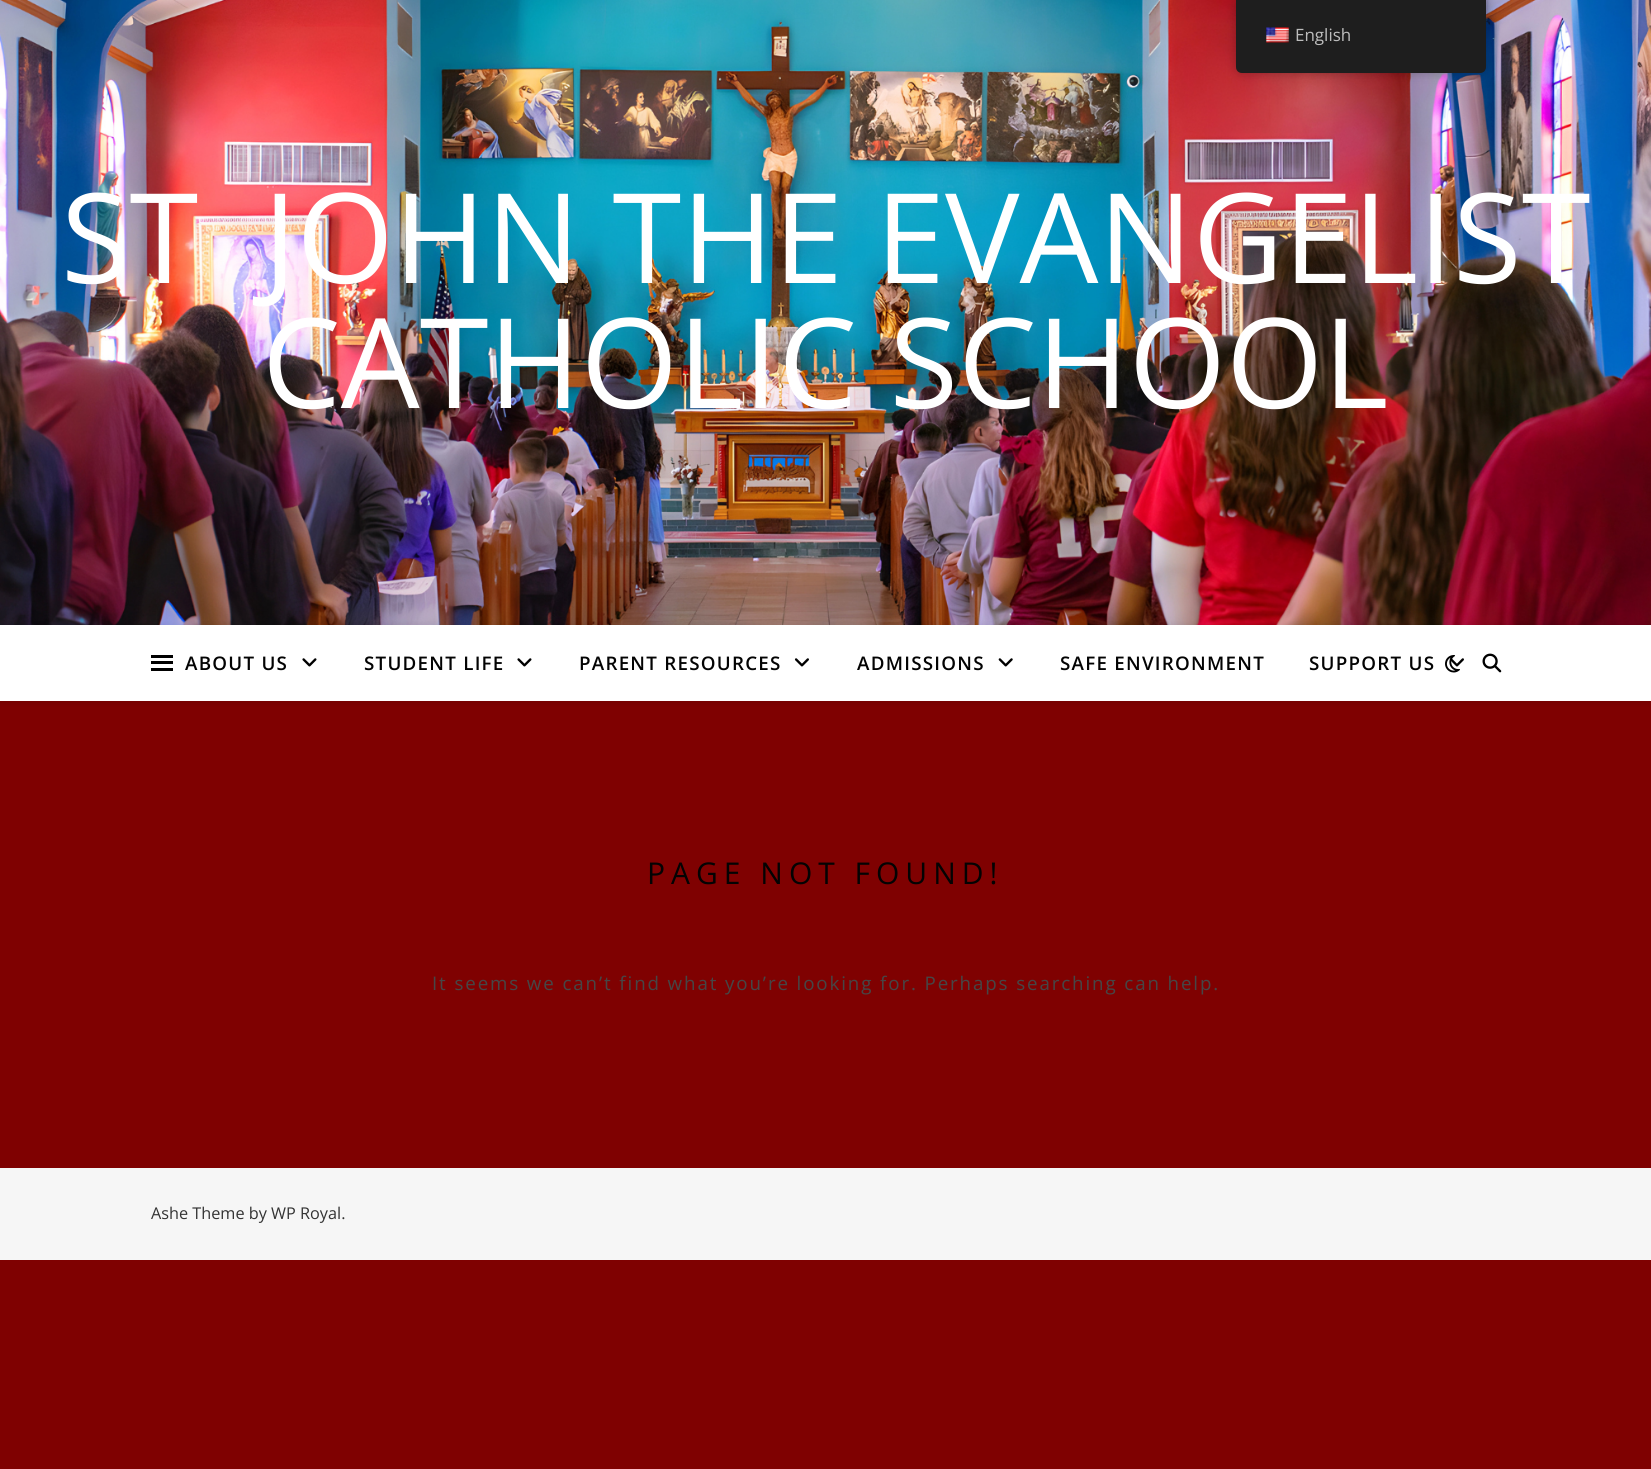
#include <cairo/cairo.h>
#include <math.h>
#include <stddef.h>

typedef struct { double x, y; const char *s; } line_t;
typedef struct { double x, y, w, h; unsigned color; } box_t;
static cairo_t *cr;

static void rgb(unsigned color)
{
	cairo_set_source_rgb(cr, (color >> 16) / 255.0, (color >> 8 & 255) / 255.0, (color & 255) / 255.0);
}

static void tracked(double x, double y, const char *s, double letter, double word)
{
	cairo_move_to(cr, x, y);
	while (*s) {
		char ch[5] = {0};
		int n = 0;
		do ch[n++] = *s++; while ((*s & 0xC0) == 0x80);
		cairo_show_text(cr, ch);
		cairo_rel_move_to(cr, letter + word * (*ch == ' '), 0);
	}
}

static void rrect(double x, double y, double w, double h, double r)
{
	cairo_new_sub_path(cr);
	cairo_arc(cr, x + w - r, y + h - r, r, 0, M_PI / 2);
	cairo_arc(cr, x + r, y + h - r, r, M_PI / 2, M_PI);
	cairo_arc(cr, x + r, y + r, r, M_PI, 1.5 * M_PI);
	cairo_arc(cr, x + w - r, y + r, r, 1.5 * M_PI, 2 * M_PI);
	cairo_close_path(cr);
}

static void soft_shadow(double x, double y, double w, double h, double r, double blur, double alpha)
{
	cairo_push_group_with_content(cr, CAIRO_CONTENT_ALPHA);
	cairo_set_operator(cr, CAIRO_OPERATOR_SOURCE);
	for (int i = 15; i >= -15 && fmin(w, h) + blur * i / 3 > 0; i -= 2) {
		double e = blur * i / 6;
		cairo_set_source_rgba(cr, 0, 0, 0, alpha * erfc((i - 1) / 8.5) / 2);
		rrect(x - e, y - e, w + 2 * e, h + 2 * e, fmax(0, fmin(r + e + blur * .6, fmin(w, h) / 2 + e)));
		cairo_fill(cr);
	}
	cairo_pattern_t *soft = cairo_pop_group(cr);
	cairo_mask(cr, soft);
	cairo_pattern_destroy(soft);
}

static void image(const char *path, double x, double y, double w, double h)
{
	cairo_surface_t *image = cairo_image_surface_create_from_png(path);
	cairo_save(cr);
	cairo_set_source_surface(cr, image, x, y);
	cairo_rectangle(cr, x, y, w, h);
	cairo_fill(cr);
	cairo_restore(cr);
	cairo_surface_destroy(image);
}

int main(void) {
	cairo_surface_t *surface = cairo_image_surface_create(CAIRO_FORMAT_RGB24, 1651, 1469);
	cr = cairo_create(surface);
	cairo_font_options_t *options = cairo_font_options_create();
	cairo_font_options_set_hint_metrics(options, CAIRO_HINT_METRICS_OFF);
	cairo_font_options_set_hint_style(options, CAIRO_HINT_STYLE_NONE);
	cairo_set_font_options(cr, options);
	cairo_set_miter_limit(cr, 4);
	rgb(0x7f0101);
	cairo_paint(cr);
	image("img/2.png", 0, 0, 1651, 625);
	rgb(0x000000);
	soft_shadow(1236, 0, 250, 73, 6, 5, 0.25);
	rgb(0x1e1e1e);
	cairo_new_path(cr);
	cairo_move_to(cr, 1236, 0);
	cairo_line_to(cr, 1486, 0);
	cairo_line_to(cr, 1486, 67);
	cairo_curve_to(cr, 1486, 70.5, 1483.5, 73, 1480, 73);
	cairo_line_to(cr, 1242, 73);
	cairo_curve_to(cr, 1238.5, 73, 1236, 70.5, 1236, 67);
	cairo_close_path(cr);
	cairo_fill(cr);
	image("img/1.png", 1266, 27, 23, 16);
	rgb(0x000000);
	soft_shadow(0, 626, 1651, 77, 0, 3, 0.1);
	{
		static const box_t items[] = {
			{0, 625, 1651, 76, 0xffffff},
			{151, 655, 22, 3, 0x000000},
			{151, 661, 22, 3, 0x000000},
			{151, 668, 22, 3, 0x000000},
		};
		for (size_t i = 0; i < sizeof items / sizeof *items; i++) {
			rgb(items[i].color);
			cairo_rectangle(cr, items[i].x, items[i].y, items[i].w, items[i].h);
			cairo_fill(cr);
		}
	}
	image("img/3.png", 302, 658, 15, 9);
	image("img/3.png", 517, 658, 15, 9);
	image("img/4.png", 794, 658, 15, 9);
	image("img/5.png", 998, 658, 15, 9);
	image("img/4.png", 1449, 658, 15, 9);
	image("img/6.png", 1445, 655, 15, 18);
	image("img/7.png", 1482, 653, 20, 20);
	rgb(0xf6f6f6);
	cairo_rectangle(cr, 0, 1168, 1651, 92);
	cairo_fill(cr);
	cairo_select_font_face(cr, "Open Sans", CAIRO_FONT_SLANT_NORMAL, CAIRO_FONT_WEIGHT_NORMAL);
	cairo_set_font_size(cr, 17);
	rgb(0xbdbdbd);
	cairo_move_to(cr, 1295, 41);
	cairo_show_text(cr, "English");
	cairo_set_font_size(cr, 125);
	rgb(0xffffff);
	{
		static const line_t items[] = {
			{61, 283, "ST"},
			{263, 283, "JOHN THE EVANGELIST"},
			{262, 408, "CATHOLIC SCHOOL"},
		};
		for (size_t i = 0; i < sizeof items / sizeof *items; i++) {
			cairo_move_to(cr, items[i].x, items[i].y);
			cairo_show_text(cr, items[i].s);
		}
	}
	cairo_select_font_face(cr, "Open Sans SemiBold", CAIRO_FONT_SLANT_NORMAL, CAIRO_FONT_WEIGHT_NORMAL);
	cairo_set_font_size(cr, 18.75);
	rgb(0x030303);
	{
		static const line_t items[] = {
			{185, 670, "ABOUT US"},
			{364, 670, "STUDENT LIFE"},
			{579, 670, "PARENT RESOURCES"},
			{857, 670, "ADMISSIONS"},
			{1060, 670, "SAFE ENVIRONMENT"},
			{1309, 670, "SUPPORT US"},
		};
		for (size_t i = 0; i < sizeof items / sizeof *items; i++) {
			tracked(items[i].x, items[i].y, items[i].s, 1.25, 0);
		}
	}
	cairo_select_font_face(cr, "Open Sans", CAIRO_FONT_SLANT_NORMAL, CAIRO_FONT_WEIGHT_NORMAL);
	cairo_set_font_size(cr, 30);
	tracked(647, 884, "PAGE NOT FOUND!", 6, 0);
	cairo_set_font_size(cr, 18.75);
	rgb(0x464646);
	tracked(432, 990, "It seems we can’t find what you’re looking for. Perhaps searching can help.", 1.88, 0);
	cairo_set_font_size(cr, 16.25);
	rgb(0x333333);
	cairo_move_to(cr, 151, 1219);
	cairo_show_text(cr, "Ashe Theme by WP Royal.");
	cairo_surface_write_to_png(surface, "page.png");
	cairo_font_options_destroy(options);
	cairo_destroy(cr);
	cairo_surface_destroy(surface);
	return 0;
}
